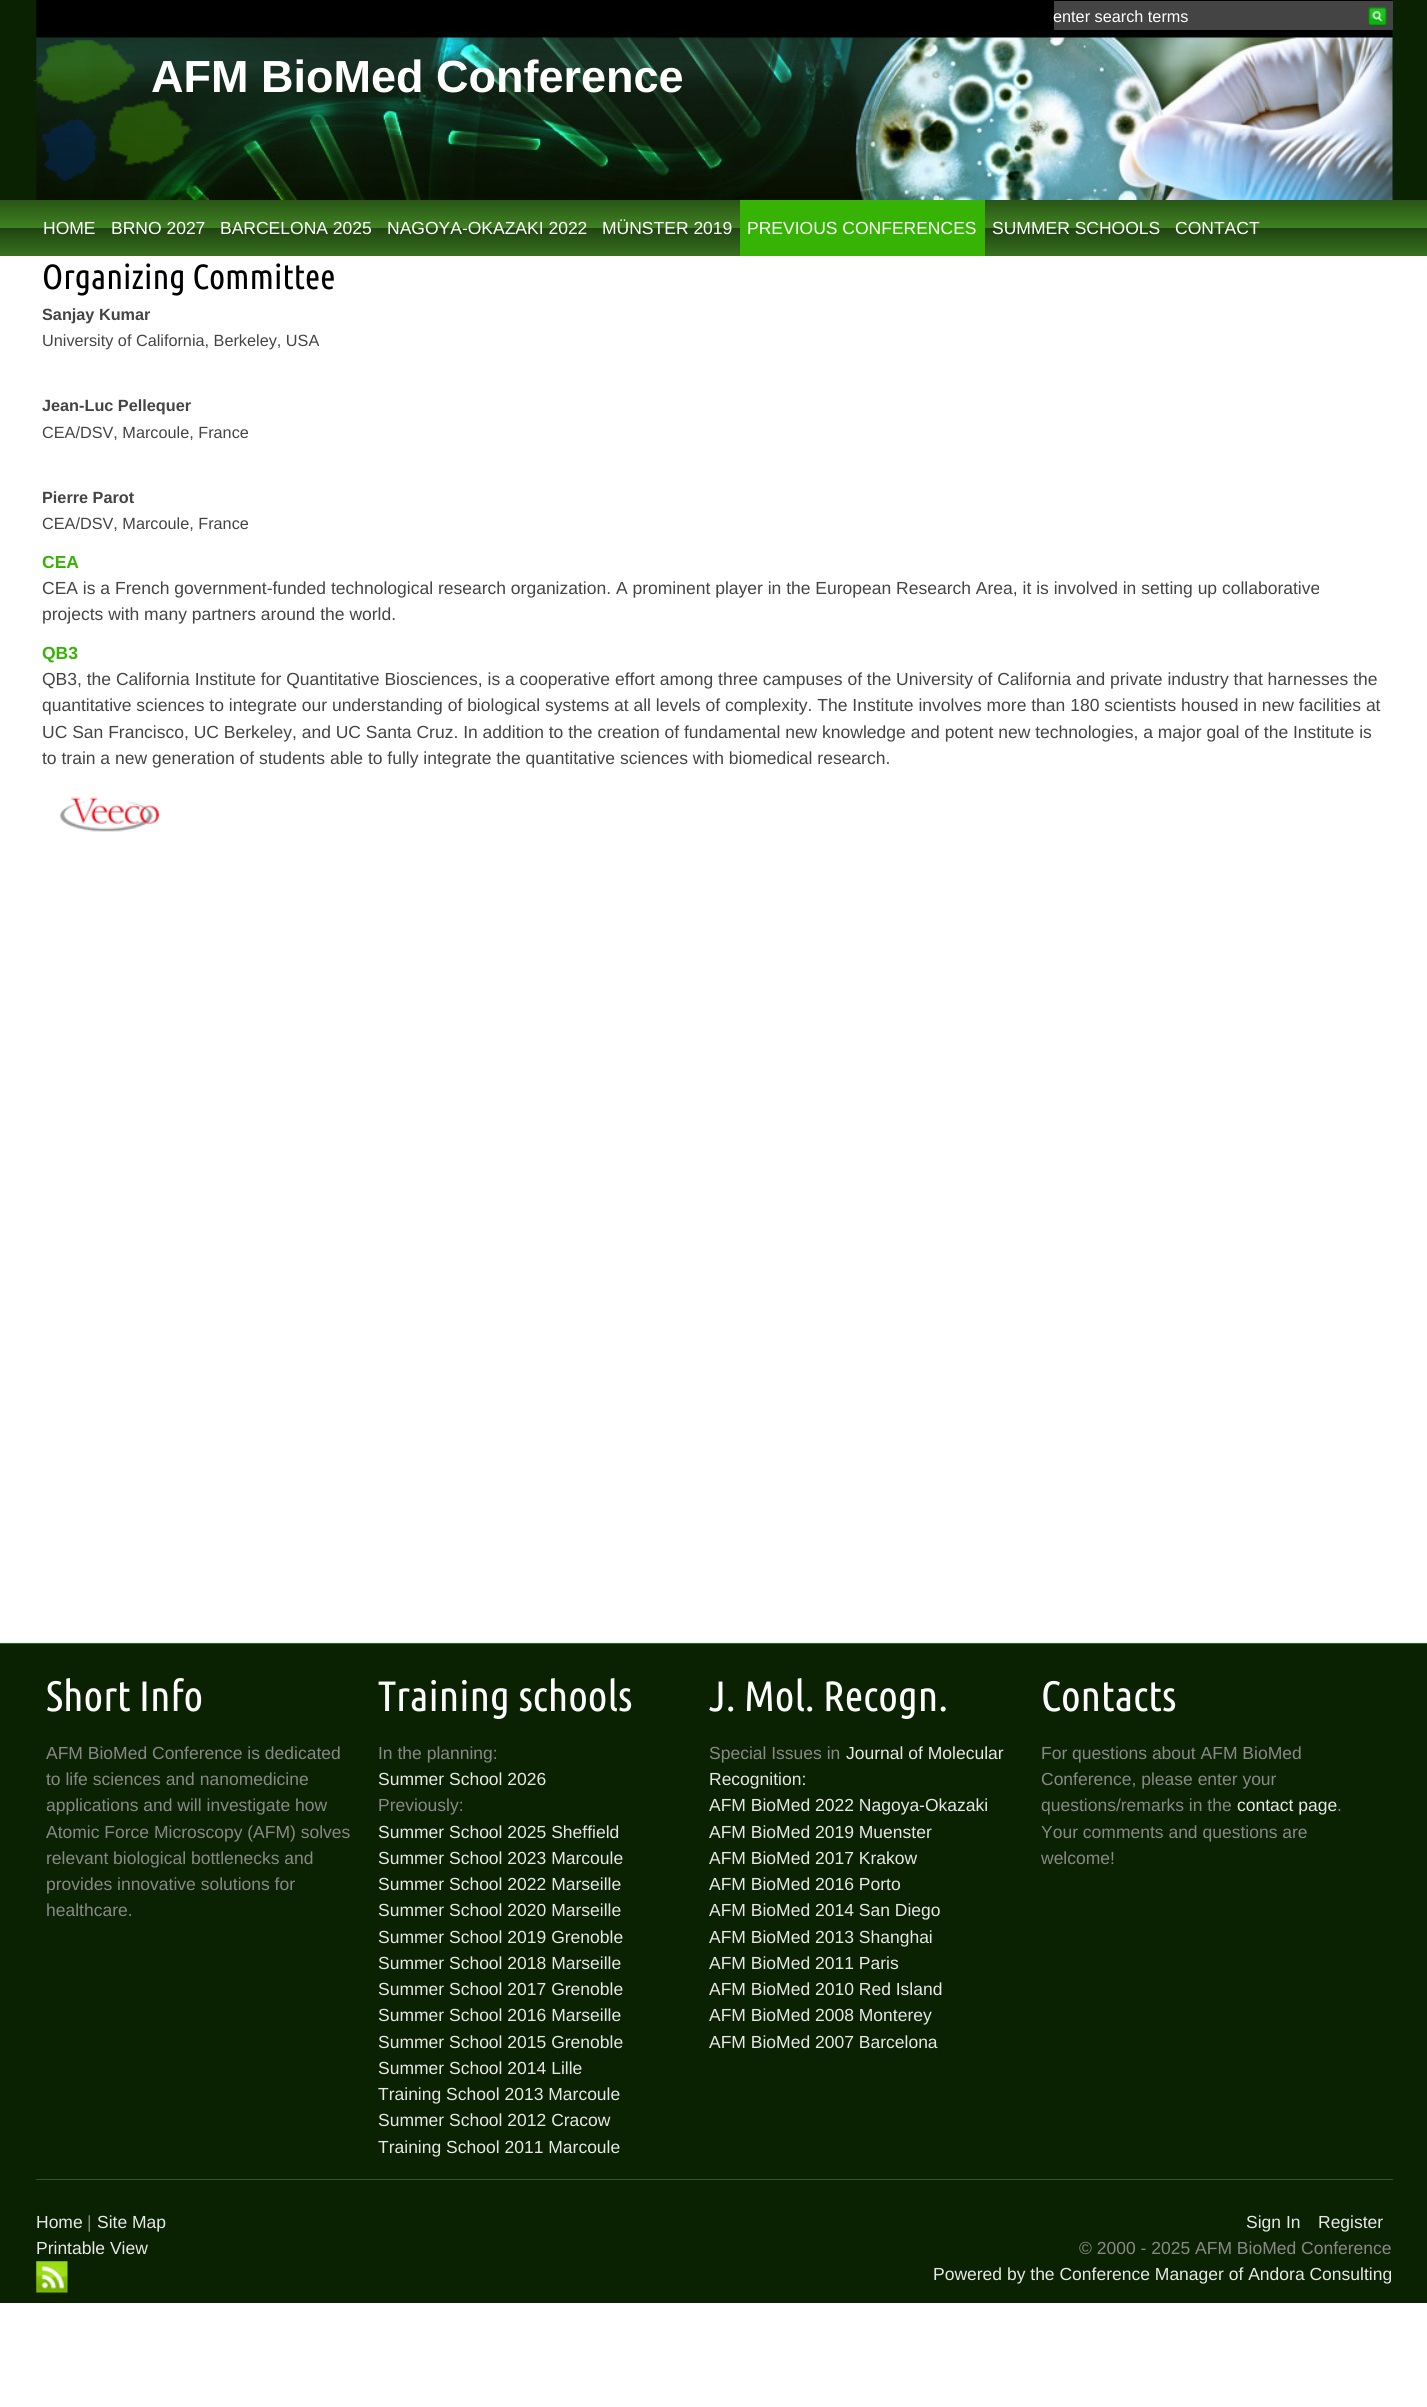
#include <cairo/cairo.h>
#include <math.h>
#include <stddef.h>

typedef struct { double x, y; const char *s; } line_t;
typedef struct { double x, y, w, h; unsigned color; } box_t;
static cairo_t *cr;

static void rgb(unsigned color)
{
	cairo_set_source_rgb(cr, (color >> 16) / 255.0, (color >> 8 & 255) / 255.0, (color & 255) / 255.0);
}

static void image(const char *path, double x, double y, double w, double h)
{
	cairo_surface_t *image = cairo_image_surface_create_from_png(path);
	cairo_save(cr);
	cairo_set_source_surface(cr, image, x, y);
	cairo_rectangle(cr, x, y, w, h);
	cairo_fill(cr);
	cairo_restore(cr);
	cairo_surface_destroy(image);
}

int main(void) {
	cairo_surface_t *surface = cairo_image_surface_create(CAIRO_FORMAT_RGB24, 1427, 2407);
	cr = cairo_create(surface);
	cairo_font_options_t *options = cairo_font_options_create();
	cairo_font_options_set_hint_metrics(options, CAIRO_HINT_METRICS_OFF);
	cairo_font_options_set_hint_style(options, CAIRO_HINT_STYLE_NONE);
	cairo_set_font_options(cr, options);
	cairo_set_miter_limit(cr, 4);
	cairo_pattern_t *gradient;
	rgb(0xffffff);
	cairo_paint(cr);
	rgb(0x0a2201);
	cairo_rectangle(cr, 0, 0, 1427, 200);
	cairo_fill(cr);
	image("img/1.png", 36, 0, 1357, 200);
	rgb(0x444444);
	cairo_rectangle(cr, 1054, 1, 339, 29);
	cairo_fill(cr);
	image("img/2.png", 1368, 7, 19, 19);
	image("img/3.png", 33, 40, 160, 142);
	gradient = cairo_pattern_create_linear(714, 200, 714, 256);
	cairo_pattern_add_color_stop_rgba(gradient, 0, 0.161, 0.333, 0.086, 1);
	cairo_pattern_add_color_stop_rgba(gradient, 0.5, 0.247, 0.506, 0.133, 1);
	cairo_pattern_add_color_stop_rgba(gradient, 0.5, 0.129, 0.267, 0.071, 1);
	cairo_pattern_add_color_stop_rgba(gradient, 1, 0.216, 0.443, 0.118, 1);
	cairo_set_source(cr, gradient);
	cairo_pattern_destroy(gradient);
	cairo_rectangle(cr, 0, 200, 1427, 56);
	cairo_fill(cr);
	rgb(0x36b305);
	cairo_rectangle(cr, 740, 200, 245, 56);
	cairo_fill(cr);
	image("img/4.png", 59, 797, 101, 35);
	{
		static const box_t items[] = {
			{0, 1644, 1427, 659, 0x0a2201},
			{0, 1643, 1427, 1, 0x077e07},
			{36, 2179, 1357, 1, 0x2b5918},
		};
		for (size_t i = 0; i < sizeof items / sizeof *items; i++) {
			rgb(items[i].color);
			cairo_rectangle(cr, items[i].x, items[i].y, items[i].w, items[i].h);
			cairo_fill(cr);
		}
	}
	image("img/5.png", 36, 2261, 32, 32);
	cairo_select_font_face(cr, "Liberation Sans", CAIRO_FONT_SLANT_NORMAL, CAIRO_FONT_WEIGHT_NORMAL);
	cairo_set_font_size(cr, 16.25);
	rgb(0xffffff);
	cairo_move_to(cr, 1053, 22);
	cairo_show_text(cr, "enter search terms");
	cairo_select_font_face(cr, "Liberation Sans", CAIRO_FONT_SLANT_NORMAL, CAIRO_FONT_WEIGHT_BOLD);
	cairo_set_font_size(cr, 45);
	cairo_move_to(cr, 151, 92);
	cairo_show_text(cr, "AFM BioMed Conference");
	cairo_select_font_face(cr, "Liberation Sans", CAIRO_FONT_SLANT_NORMAL, CAIRO_FONT_WEIGHT_NORMAL);
	cairo_set_font_size(cr, 17.5);
	{
		static const line_t items[] = {
			{43, 234, "HOME"},
			{111, 234, "BRNO 2027"},
			{220, 234, "BARCELONA 2025"},
			{387, 234, "NAGOYA-OKAZAKI 2022"},
			{602, 234, "MÜNSTER 2019"},
			{747, 234, "PREVIOUS CONFERENCES"},
			{992, 234, "SUMMER SCHOOLS"},
			{1175, 234, "CONTACT"},
		};
		for (size_t i = 0; i < sizeof items / sizeof *items; i++) {
			cairo_move_to(cr, items[i].x, items[i].y);
			cairo_show_text(cr, items[i].s);
		}
	}
	cairo_select_font_face(cr, "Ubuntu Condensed", CAIRO_FONT_SLANT_NORMAL, CAIRO_FONT_WEIGHT_NORMAL);
	cairo_set_font_size(cr, 35);
	rgb(0x000000);
	cairo_move_to(cr, 42, 289);
	cairo_show_text(cr, "Organizing Committee");
	cairo_select_font_face(cr, "Liberation Sans", CAIRO_FONT_SLANT_NORMAL, CAIRO_FONT_WEIGHT_BOLD);
	cairo_set_font_size(cr, 16.25);
	rgb(0x444444);
	cairo_move_to(cr, 42, 320);
	cairo_show_text(cr, "Sanjay Kumar");
	cairo_select_font_face(cr, "Liberation Sans", CAIRO_FONT_SLANT_NORMAL, CAIRO_FONT_WEIGHT_NORMAL);
	cairo_move_to(cr, 42, 346);
	cairo_show_text(cr, "University of California, Berkeley, USA");
	cairo_select_font_face(cr, "Liberation Sans", CAIRO_FONT_SLANT_NORMAL, CAIRO_FONT_WEIGHT_BOLD);
	cairo_move_to(cr, 42, 411);
	cairo_show_text(cr, "Jean-Luc Pellequer");
	cairo_select_font_face(cr, "Liberation Sans", CAIRO_FONT_SLANT_NORMAL, CAIRO_FONT_WEIGHT_NORMAL);
	cairo_move_to(cr, 42, 438);
	cairo_show_text(cr, "CEA/DSV, Marcoule, France");
	cairo_select_font_face(cr, "Liberation Sans", CAIRO_FONT_SLANT_NORMAL, CAIRO_FONT_WEIGHT_BOLD);
	cairo_move_to(cr, 42, 503);
	cairo_show_text(cr, "Pierre Parot");
	cairo_select_font_face(cr, "Liberation Sans", CAIRO_FONT_SLANT_NORMAL, CAIRO_FONT_WEIGHT_NORMAL);
	cairo_move_to(cr, 42, 529);
	cairo_show_text(cr, "CEA/DSV, Marcoule, France");
	cairo_select_font_face(cr, "Liberation Sans", CAIRO_FONT_SLANT_NORMAL, CAIRO_FONT_WEIGHT_BOLD);
	cairo_set_font_size(cr, 17.5);
	rgb(0x36b305);
	cairo_move_to(cr, 42, 568);
	cairo_show_text(cr, "CEA");
	cairo_select_font_face(cr, "Liberation Sans", CAIRO_FONT_SLANT_NORMAL, CAIRO_FONT_WEIGHT_NORMAL);
	rgb(0x444444);
	cairo_move_to(cr, 42, 594);
	cairo_show_text(cr, "CEA is a French government-funded technological research organization. A prominent player in the European Research Area, it is involved in setting up collaborative");
	cairo_move_to(cr, 42, 620);
	cairo_show_text(cr, "projects with many partners around the world.");
	cairo_select_font_face(cr, "Liberation Sans", CAIRO_FONT_SLANT_NORMAL, CAIRO_FONT_WEIGHT_BOLD);
	rgb(0x36b305);
	cairo_move_to(cr, 42, 659);
	cairo_show_text(cr, "QB3");
	cairo_select_font_face(cr, "Liberation Sans", CAIRO_FONT_SLANT_NORMAL, CAIRO_FONT_WEIGHT_NORMAL);
	rgb(0x444444);
	{
		static const line_t items[] = {
			{42, 685, "QB3, the California Institute for Quantitative Biosciences, is a cooperative effort among three campuses of the University of California and private industry that harnesses the"},
			{42, 711, "quantitative sciences to integrate our understanding of biological systems at all levels of complexity. The Institute involves more than 180 scientists housed in new facilities at"},
			{42, 738, "UC San Francisco, UC Berkeley, and UC Santa Cruz. In addition to the creation of fundamental new knowledge and potent new technologies, a major goal of the Institute is"},
			{42, 764, "to train a new generation of students able to fully integrate the quantitative sciences with biomedical research."},
		};
		for (size_t i = 0; i < sizeof items / sizeof *items; i++) {
			cairo_move_to(cr, items[i].x, items[i].y);
			cairo_show_text(cr, items[i].s);
		}
	}
	cairo_select_font_face(cr, "Ubuntu Condensed", CAIRO_FONT_SLANT_NORMAL, CAIRO_FONT_WEIGHT_NORMAL);
	cairo_set_font_size(cr, 42.5);
	rgb(0xffffff);
	cairo_move_to(cr, 46, 1711);
	cairo_show_text(cr, "Short Info");
	cairo_select_font_face(cr, "Liberation Sans", CAIRO_FONT_SLANT_NORMAL, CAIRO_FONT_WEIGHT_NORMAL);
	cairo_set_font_size(cr, 17.5);
	rgb(0x888888);
	{
		static const line_t items[] = {
			{46, 1759, "AFM BioMed Conference is dedicated"},
			{46, 1785, "to life sciences and nanomedicine"},
			{46, 1811, "applications and will investigate how"},
			{46, 1838, "Atomic Force Microscopy (AFM) solves"},
			{46, 1864, "relevant biological bottlenecks and"},
			{46, 1890, "provides innovative solutions for"},
			{46, 1916, "healthcare."},
		};
		for (size_t i = 0; i < sizeof items / sizeof *items; i++) {
			cairo_move_to(cr, items[i].x, items[i].y);
			cairo_show_text(cr, items[i].s);
		}
	}
	cairo_select_font_face(cr, "Ubuntu Condensed", CAIRO_FONT_SLANT_NORMAL, CAIRO_FONT_WEIGHT_NORMAL);
	cairo_set_font_size(cr, 42.5);
	rgb(0xffffff);
	cairo_move_to(cr, 378, 1711);
	cairo_show_text(cr, "Training schools");
	cairo_select_font_face(cr, "Liberation Sans", CAIRO_FONT_SLANT_NORMAL, CAIRO_FONT_WEIGHT_NORMAL);
	cairo_set_font_size(cr, 17.5);
	rgb(0x888888);
	cairo_move_to(cr, 378, 1759);
	cairo_show_text(cr, "In the planning:");
	rgb(0xe8e8e8);
	cairo_move_to(cr, 378, 1785);
	cairo_show_text(cr, "Summer School 2026");
	rgb(0x888888);
	cairo_move_to(cr, 378, 1811);
	cairo_show_text(cr, "Previously:");
	rgb(0xe8e8e8);
	{
		static const line_t items[] = {
			{378, 1838, "Summer School 2025 Sheffield"},
			{378, 1864, "Summer School 2023 Marcoule"},
			{378, 1890, "Summer School 2022 Marseille"},
			{378, 1916, "Summer School 2020 Marseille"},
			{378, 1943, "Summer School 2019 Grenoble"},
			{378, 1969, "Summer School 2018 Marseille"},
			{378, 1995, "Summer School 2017 Grenoble"},
			{378, 2021, "Summer School 2016 Marseille"},
			{378, 2048, "Summer School 2015 Grenoble"},
			{378, 2074, "Summer School 2014 Lille"},
			{378, 2100, "Training School 2013 Marcoule"},
			{378, 2126, "Summer School 2012 Cracow"},
			{378, 2153, "Training School 2011 Marcoule"},
		};
		for (size_t i = 0; i < sizeof items / sizeof *items; i++) {
			cairo_move_to(cr, items[i].x, items[i].y);
			cairo_show_text(cr, items[i].s);
		}
	}
	cairo_select_font_face(cr, "Ubuntu Condensed", CAIRO_FONT_SLANT_NORMAL, CAIRO_FONT_WEIGHT_NORMAL);
	cairo_set_font_size(cr, 42.5);
	rgb(0xffffff);
	cairo_move_to(cr, 709, 1711);
	cairo_show_text(cr, "J. Mol. Recogn.");
	cairo_select_font_face(cr, "Liberation Sans", CAIRO_FONT_SLANT_NORMAL, CAIRO_FONT_WEIGHT_NORMAL);
	cairo_set_font_size(cr, 17.5);
	rgb(0x888888);
	cairo_move_to(cr, 709, 1759);
	cairo_show_text(cr, "Special Issues in");
	rgb(0xe8e8e8);
	{
		static const line_t items[] = {
			{846, 1759, "Journal of Molecular"},
			{709, 1785, "Recognition:"},
			{709, 1811, "AFM BioMed 2022 Nagoya-Okazaki"},
			{709, 1838, "AFM BioMed 2019 Muenster"},
			{709, 1864, "AFM BioMed 2017 Krakow"},
			{709, 1890, "AFM BioMed 2016 Porto"},
			{709, 1916, "AFM BioMed 2014 San Diego"},
			{709, 1943, "AFM BioMed 2013 Shanghai"},
			{709, 1969, "AFM BioMed 2011 Paris"},
			{709, 1995, "AFM BioMed 2010 Red Island"},
			{709, 2021, "AFM BioMed 2008 Monterey"},
			{709, 2048, "AFM BioMed 2007 Barcelona"},
		};
		for (size_t i = 0; i < sizeof items / sizeof *items; i++) {
			cairo_move_to(cr, items[i].x, items[i].y);
			cairo_show_text(cr, items[i].s);
		}
	}
	cairo_select_font_face(cr, "Ubuntu Condensed", CAIRO_FONT_SLANT_NORMAL, CAIRO_FONT_WEIGHT_NORMAL);
	cairo_set_font_size(cr, 42.5);
	rgb(0xffffff);
	cairo_move_to(cr, 1041, 1711);
	cairo_show_text(cr, "Contacts");
	cairo_select_font_face(cr, "Liberation Sans", CAIRO_FONT_SLANT_NORMAL, CAIRO_FONT_WEIGHT_NORMAL);
	cairo_set_font_size(cr, 17.5);
	rgb(0x888888);
	{
		static const line_t items[] = {
			{1041, 1759, "For questions about AFM BioMed"},
			{1041, 1785, "Conference, please enter your"},
			{1041, 1811, "questions/remarks in the"},
		};
		for (size_t i = 0; i < sizeof items / sizeof *items; i++) {
			cairo_move_to(cr, items[i].x, items[i].y);
			cairo_show_text(cr, items[i].s);
		}
	}
	rgb(0xe8e8e8);
	cairo_move_to(cr, 1237, 1811);
	cairo_show_text(cr, "contact page");
	rgb(0x888888);
	{
		static const line_t items[] = {
			{1337, 1811, "."},
			{1041, 1838, "Your comments and questions are"},
			{1041, 1864, "welcome!"},
		};
		for (size_t i = 0; i < sizeof items / sizeof *items; i++) {
			cairo_move_to(cr, items[i].x, items[i].y);
			cairo_show_text(cr, items[i].s);
		}
	}
	rgb(0xe8e8e8);
	cairo_move_to(cr, 36, 2228);
	cairo_show_text(cr, "Home");
	rgb(0x888888);
	cairo_move_to(cr, 87, 2228);
	cairo_show_text(cr, "|");
	rgb(0xe8e8e8);
	{
		static const line_t items[] = {
			{97, 2228, "Site Map"},
			{36, 2254, "Printable View"},
			{1246, 2228, "Sign In"},
			{1318, 2228, "Register"},
		};
		for (size_t i = 0; i < sizeof items / sizeof *items; i++) {
			cairo_move_to(cr, items[i].x, items[i].y);
			cairo_show_text(cr, items[i].s);
		}
	}
	rgb(0x888888);
	cairo_move_to(cr, 1079, 2254);
	cairo_show_text(cr, "© 2000 - 2025 AFM BioMed Conference");
	rgb(0xe8e8e8);
	cairo_move_to(cr, 933, 2280);
	cairo_show_text(cr, "Powered by the Conference Manager of Andora Consulting");
	cairo_surface_write_to_png(surface, "page.png");
	cairo_font_options_destroy(options);
	cairo_destroy(cr);
	cairo_surface_destroy(surface);
	return 0;
}
